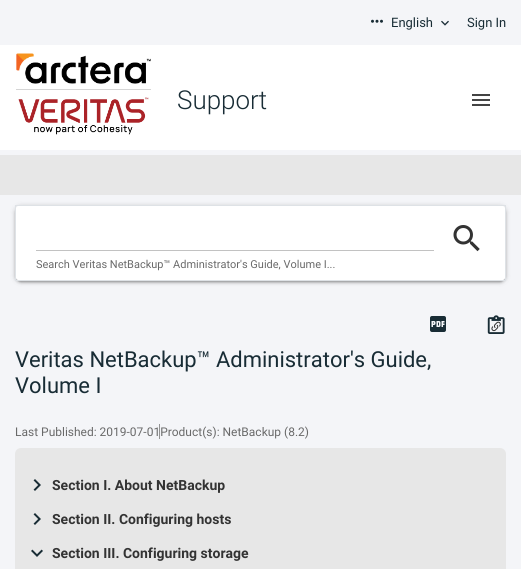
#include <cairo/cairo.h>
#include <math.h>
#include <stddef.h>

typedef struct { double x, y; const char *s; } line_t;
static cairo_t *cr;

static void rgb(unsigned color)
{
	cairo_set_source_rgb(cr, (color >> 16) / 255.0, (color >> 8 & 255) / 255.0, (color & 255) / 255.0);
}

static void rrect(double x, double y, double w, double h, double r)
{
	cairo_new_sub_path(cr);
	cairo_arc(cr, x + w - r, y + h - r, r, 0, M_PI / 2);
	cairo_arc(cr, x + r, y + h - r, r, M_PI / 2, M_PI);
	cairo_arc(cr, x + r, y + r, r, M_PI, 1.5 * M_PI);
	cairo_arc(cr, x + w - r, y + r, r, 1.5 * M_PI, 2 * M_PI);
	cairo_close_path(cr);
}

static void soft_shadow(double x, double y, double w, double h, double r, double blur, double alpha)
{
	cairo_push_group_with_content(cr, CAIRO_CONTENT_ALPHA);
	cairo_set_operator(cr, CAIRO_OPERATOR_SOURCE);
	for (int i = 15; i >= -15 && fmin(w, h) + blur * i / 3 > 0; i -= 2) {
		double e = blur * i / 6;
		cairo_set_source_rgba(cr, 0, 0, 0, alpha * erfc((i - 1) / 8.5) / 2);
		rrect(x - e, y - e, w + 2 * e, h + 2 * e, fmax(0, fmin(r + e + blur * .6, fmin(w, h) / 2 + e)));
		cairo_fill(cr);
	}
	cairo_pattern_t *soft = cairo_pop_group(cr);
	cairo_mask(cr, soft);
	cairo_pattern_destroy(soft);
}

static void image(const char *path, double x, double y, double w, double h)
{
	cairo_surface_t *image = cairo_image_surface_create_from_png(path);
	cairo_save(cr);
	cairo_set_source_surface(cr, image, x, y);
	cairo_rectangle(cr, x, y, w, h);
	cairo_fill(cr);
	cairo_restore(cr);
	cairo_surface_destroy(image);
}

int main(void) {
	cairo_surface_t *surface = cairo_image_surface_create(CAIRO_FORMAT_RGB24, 521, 569);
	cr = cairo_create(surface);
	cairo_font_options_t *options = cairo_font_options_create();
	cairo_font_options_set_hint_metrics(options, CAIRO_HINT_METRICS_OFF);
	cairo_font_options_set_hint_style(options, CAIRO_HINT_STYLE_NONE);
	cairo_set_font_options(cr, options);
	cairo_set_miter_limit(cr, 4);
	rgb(0xf4f5f8);
	cairo_paint(cr);
	image("img/1.png", 371, 19, 12, 4);
	image("img/2.png", 441, 20, 8, 6);
	rgb(0xffffff);
	cairo_rectangle(cr, 0, 45, 521, 105);
	cairo_fill(cr);
	image("img/3.png", 16, 53, 135, 31);
	rgb(0xd5d5d5);
	cairo_rectangle(cr, 16, 89, 135, 1);
	cairo_fill(cr);
	image("img/4.png", 18, 97, 131, 38);
	image("img/5.png", 472, 94, 18, 12);
	rgb(0xe7e7e7);
	cairo_rectangle(cr, 0, 155, 521, 40);
	cairo_fill(cr);
	rgb(0x000000);
	soft_shadow(17, 210, 487, 72, 4, 0.5, 0.12);
	soft_shadow(15, 207, 491, 76, 6, 1, 0.14);
	soft_shadow(15, 206, 491, 76, 6, 2.5, 0.2);
	rgb(0xffffff);
	rrect(15, 205, 491, 76, 6);
	cairo_fill(cr);
	cairo_rectangle(cr, 15.5, 205.5, 490, 75);
	rgb(0xdee2e6);
	cairo_set_line_width(cr, 1);
	cairo_stroke(cr);
	rgb(0xc2c2c2);
	cairo_rectangle(cr, 36, 250, 398, 1);
	cairo_fill(cr);
	image("img/6.png", 453, 225, 27, 27);
	image("img/7.png", 430, 316, 16, 16);
	image("img/8.png", 487, 315, 18, 19);
	image("img/9.png", 491, 321, 10, 11);
	rgb(0xe7e7e7);
	rrect(15, 448, 491, 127, 6);
	cairo_fill(cr);
	image("img/10.png", 33, 479, 8, 12);
	image("img/10.png", 33, 513, 8, 12);
	image("img/11.png", 31, 549, 12, 8);
	cairo_select_font_face(cr, "Roboto", CAIRO_FONT_SLANT_NORMAL, CAIRO_FONT_WEIGHT_NORMAL);
	cairo_set_font_size(cr, 13);
	rgb(0x182c35);
	cairo_move_to(cr, 391, 27);
	cairo_show_text(cr, "English");
	cairo_move_to(cr, 467, 27);
	cairo_show_text(cr, "Sign In");
	cairo_select_font_face(cr, "Roboto Light", CAIRO_FONT_SLANT_NORMAL, CAIRO_FONT_WEIGHT_NORMAL);
	cairo_set_font_size(cr, 26);
	cairo_move_to(cr, 177, 109);
	cairo_show_text(cr, "Support");
	cairo_select_font_face(cr, "Roboto", CAIRO_FONT_SLANT_NORMAL, CAIRO_FONT_WEIGHT_NORMAL);
	cairo_set_font_size(cr, 11);
	rgb(0x696969);
	cairo_move_to(cr, 36, 268);
	cairo_show_text(cr, "Search Veritas NetBackup™ Administrator's Guide, Volume I...");
	cairo_set_font_size(cr, 22);
	rgb(0x182c35);
	cairo_move_to(cr, 15, 367);
	cairo_show_text(cr, "Veritas NetBackup™ Administrator's Guide,");
	cairo_move_to(cr, 15, 393);
	cairo_show_text(cr, "Volume I");
	cairo_set_font_size(cr, 12);
	rgb(0x696969);
	cairo_move_to(cr, 15, 436);
	cairo_show_text(cr, "Last Published: 2019-07-01Product(s): NetBackup (8.2)");
	rgb(0x939393);
	cairo_rectangle(cr, 159, 424, 1, 15);
	cairo_fill(cr);
	cairo_select_font_face(cr, "Roboto", CAIRO_FONT_SLANT_NORMAL, CAIRO_FONT_WEIGHT_BOLD);
	cairo_set_font_size(cr, 14);
	rgb(0x333333);
	{
		static const line_t items[] = {
			{52, 490, "Section I. About NetBackup"},
			{52, 524, "Section II. Configuring hosts"},
			{52, 558, "Section III. Configuring storage"},
		};
		for (size_t i = 0; i < sizeof items / sizeof *items; i++) {
			cairo_move_to(cr, items[i].x, items[i].y);
			cairo_show_text(cr, items[i].s);
		}
	}
	cairo_surface_write_to_png(surface, "page.png");
	cairo_font_options_destroy(options);
	cairo_destroy(cr);
	cairo_surface_destroy(surface);
	return 0;
}
